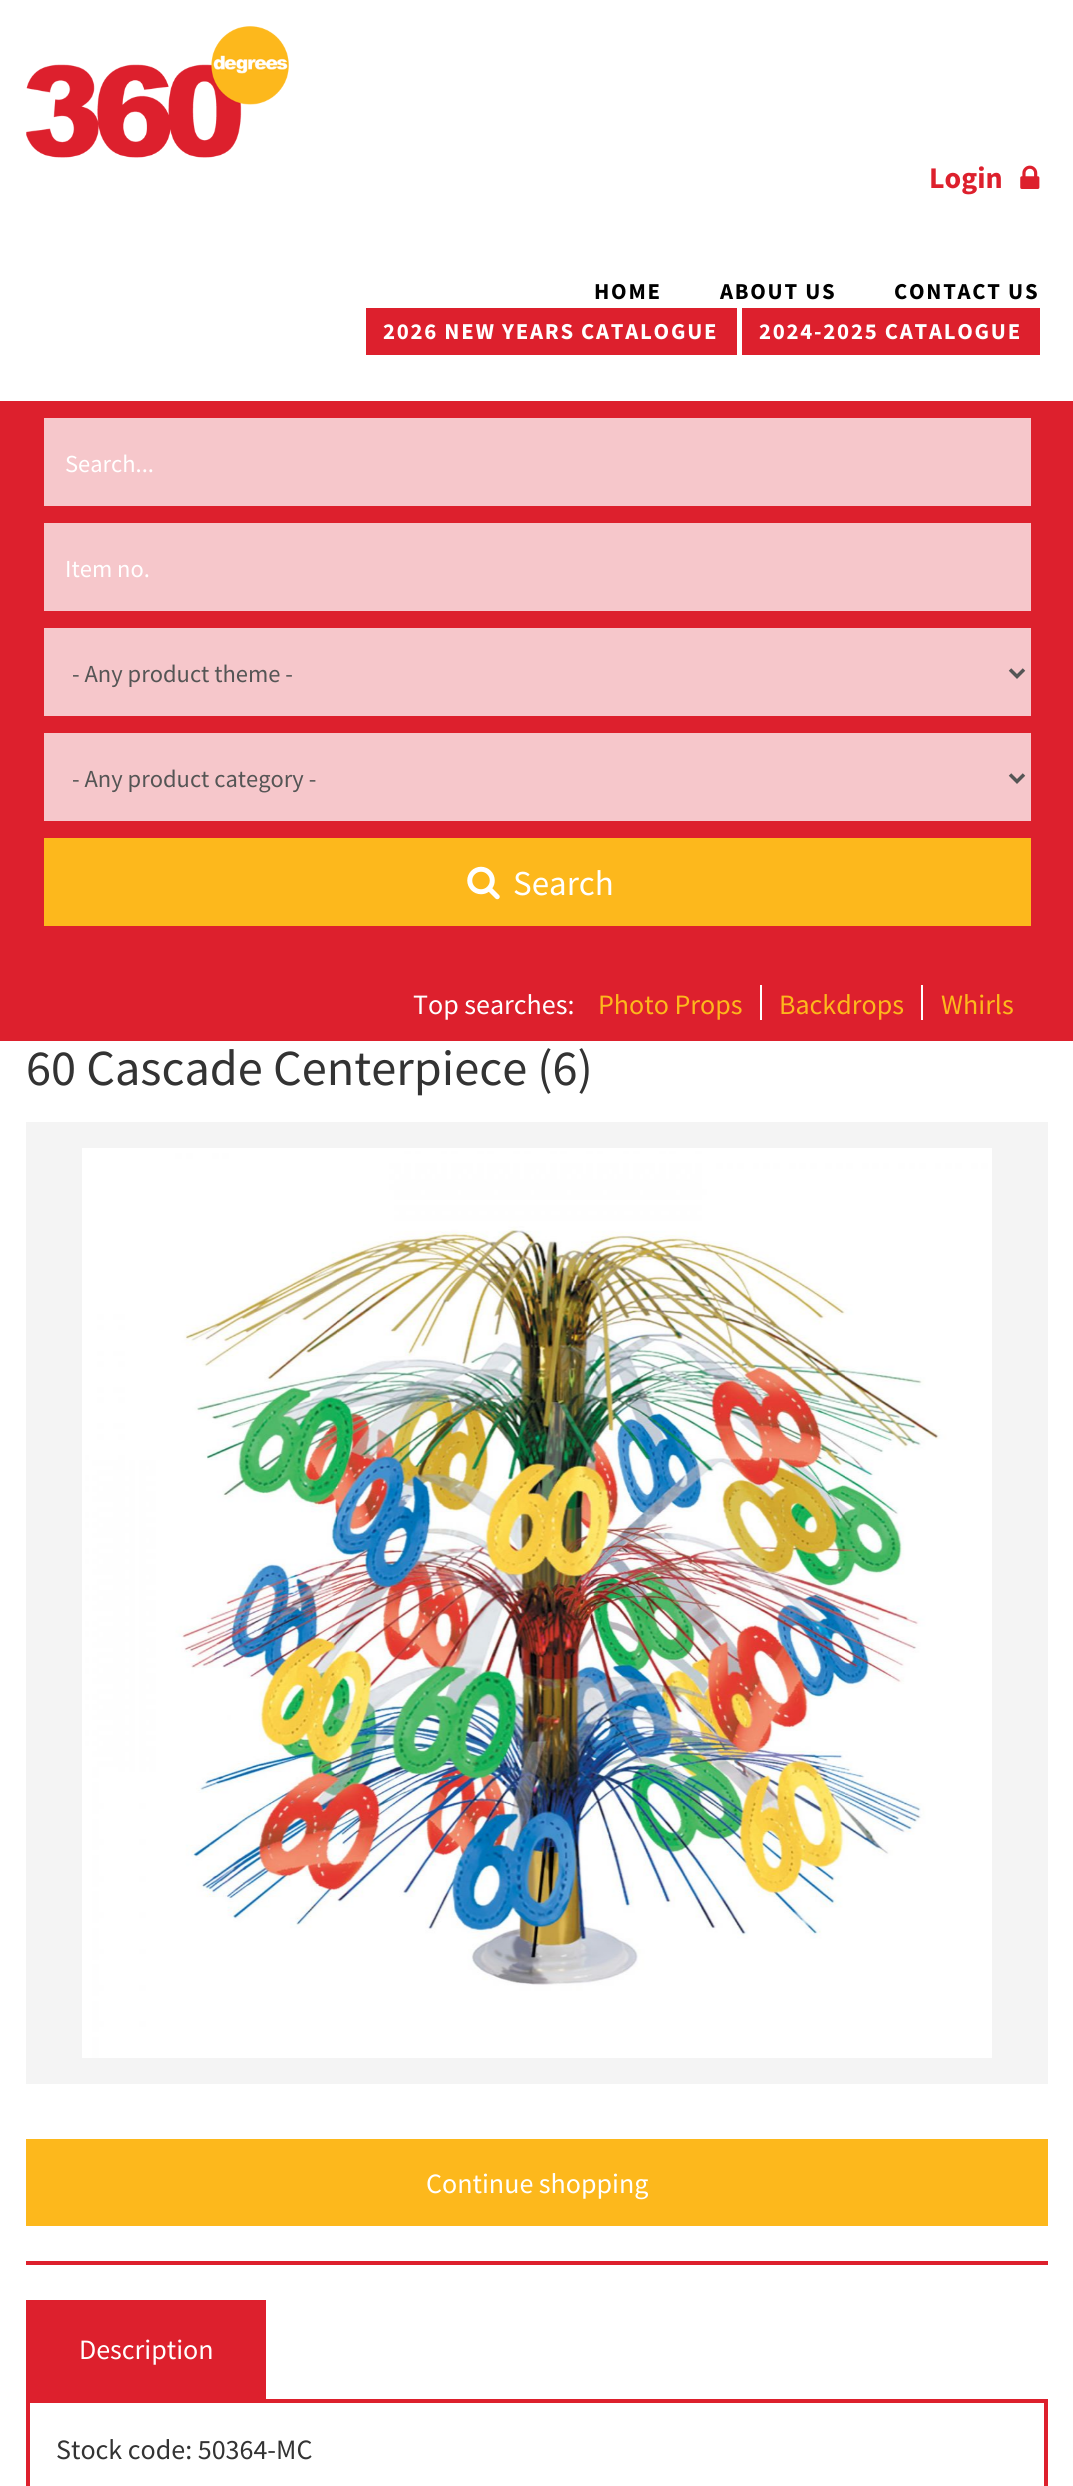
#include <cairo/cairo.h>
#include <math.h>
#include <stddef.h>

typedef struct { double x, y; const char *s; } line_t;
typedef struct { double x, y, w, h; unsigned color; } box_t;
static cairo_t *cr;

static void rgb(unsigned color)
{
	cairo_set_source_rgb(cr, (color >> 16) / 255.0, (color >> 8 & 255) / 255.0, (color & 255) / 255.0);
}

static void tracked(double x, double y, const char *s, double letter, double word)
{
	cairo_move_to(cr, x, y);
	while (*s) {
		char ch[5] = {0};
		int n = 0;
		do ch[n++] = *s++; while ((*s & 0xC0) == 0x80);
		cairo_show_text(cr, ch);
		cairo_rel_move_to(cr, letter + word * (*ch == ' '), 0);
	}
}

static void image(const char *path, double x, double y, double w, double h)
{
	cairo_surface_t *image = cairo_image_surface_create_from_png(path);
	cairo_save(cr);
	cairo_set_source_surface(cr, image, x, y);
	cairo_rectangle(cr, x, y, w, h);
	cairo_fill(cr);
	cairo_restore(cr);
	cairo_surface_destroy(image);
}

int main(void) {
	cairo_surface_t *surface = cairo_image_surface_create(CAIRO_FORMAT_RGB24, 1073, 2486);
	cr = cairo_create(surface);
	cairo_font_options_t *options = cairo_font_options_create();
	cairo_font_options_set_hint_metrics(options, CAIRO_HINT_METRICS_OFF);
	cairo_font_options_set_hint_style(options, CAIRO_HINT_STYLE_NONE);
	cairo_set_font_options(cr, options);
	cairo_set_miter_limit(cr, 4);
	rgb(0xffffff);
	cairo_paint(cr);
	image("img/1.png", 26, 26, 263, 132);
	image("img/2.png", 1020, 165, 20, 24);
	{
		static const box_t items[] = {
			{366, 308, 371, 47, 0xdd202d},
			{742, 308, 298, 47, 0xdd202d},
			{0, 401, 1073, 640, 0xdd202d},
			{44, 418, 987, 88, 0xf6c7cb},
			{44, 523, 987, 88, 0xf6c7cb},
			{44, 628, 987, 88, 0xf6c7cb},
		};
		for (size_t i = 0; i < sizeof items / sizeof *items; i++) {
			rgb(items[i].color);
			cairo_rectangle(cr, items[i].x, items[i].y, items[i].w, items[i].h);
			cairo_fill(cr);
		}
	}
	cairo_new_path(cr);
	cairo_move_to(cr, 1010, 669.5);
	cairo_line_to(cr, 1017, 676.5);
	cairo_line_to(cr, 1024, 669.5);
	rgb(0x555555);
	cairo_set_line_width(cr, 3.5);
	cairo_stroke(cr);
	rgb(0xf6c7cb);
	cairo_rectangle(cr, 44, 733, 987, 88);
	cairo_fill(cr);
	cairo_new_path(cr);
	cairo_move_to(cr, 1010, 774.5);
	cairo_line_to(cr, 1017, 781.5);
	cairo_line_to(cr, 1024, 774.5);
	rgb(0x555555);
	cairo_stroke(cr);
	rgb(0xfdb81c);
	cairo_rectangle(cr, 44, 838, 987, 88);
	cairo_fill(cr);
	image("img/3.png", 467, 866, 33, 34);
	{
		static const box_t items[] = {
			{760, 985, 2, 35, 0xffffff},
			{921, 985, 2, 35, 0xffffff},
			{26, 1122, 1022, 962, 0xf4f4f4},
		};
		for (size_t i = 0; i < sizeof items / sizeof *items; i++) {
			rgb(items[i].color);
			cairo_rectangle(cr, items[i].x, items[i].y, items[i].w, items[i].h);
			cairo_fill(cr);
		}
	}
	image("img/4.png", 82, 1148, 910, 910);
	{
		static const box_t items[] = {
			{26, 2261, 1022, 4, 0xdd202d},
			{26, 2139, 1022, 87, 0xfdb81c},
			{26, 2300, 240, 99, 0xdd202d},
		};
		for (size_t i = 0; i < sizeof items / sizeof *items; i++) {
			rgb(items[i].color);
			cairo_rectangle(cr, items[i].x, items[i].y, items[i].w, items[i].h);
			cairo_fill(cr);
		}
	}
	cairo_rectangle(cr, 28, 2401, 1018, 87);
	cairo_set_line_width(cr, 4);
	cairo_stroke(cr);
	cairo_select_font_face(cr, "Source Sans Pro", CAIRO_FONT_SLANT_NORMAL, CAIRO_FONT_WEIGHT_BOLD);
	cairo_set_font_size(cr, 30);
	cairo_move_to(cr, 929, 188);
	cairo_show_text(cr, "Login");
	cairo_set_font_size(cr, 22.75);
	rgb(0x000000);
	{
		static const line_t items[] = {
			{594, 299, "HOME"},
			{720, 299, "ABOUT US"},
			{894, 299, "CONTACT US"},
		};
		for (size_t i = 0; i < sizeof items / sizeof *items; i++) {
			tracked(items[i].x, items[i].y, items[i].s, 1.75, 0);
		}
	}
	rgb(0xffffff);
	tracked(383, 339, "2026 NEW YEARS CATALOGUE", 1.75, 0);
	tracked(759, 339, "2024-2025 CATALOGUE", 1.75, 0);
	cairo_select_font_face(cr, "Source Sans Pro", CAIRO_FONT_SLANT_NORMAL, CAIRO_FONT_WEIGHT_NORMAL);
	cairo_set_font_size(cr, 24.5);
	cairo_move_to(cr, 65, 472);
	cairo_show_text(cr, "Search...");
	cairo_move_to(cr, 65, 577);
	cairo_show_text(cr, "Item no.");
	rgb(0x555555);
	cairo_move_to(cr, 72, 682);
	cairo_show_text(cr, "- Any product theme -");
	cairo_move_to(cr, 72, 787);
	cairo_show_text(cr, "- Any product category -");
	cairo_set_font_size(cr, 35);
	rgb(0xffffff);
	cairo_move_to(cr, 513, 895);
	cairo_show_text(cr, "Search");
	cairo_set_font_size(cr, 28);
	cairo_move_to(cr, 413, 1014);
	cairo_show_text(cr, "Top searches:");
	rgb(0xfdb81c);
	{
		static const line_t items[] = {
			{598, 1014, "Photo Props"},
			{779, 1014, "Backdrops"},
			{941, 1014, "Whirls"},
		};
		for (size_t i = 0; i < sizeof items / sizeof *items; i++) {
			cairo_move_to(cr, items[i].x, items[i].y);
			cairo_show_text(cr, items[i].s);
		}
	}
	cairo_set_font_size(cr, 50.4);
	rgb(0x333333);
	cairo_move_to(cr, 26, 1085);
	cairo_show_text(cr, "60 Cascade Centerpiece (6)");
	cairo_set_font_size(cr, 28);
	rgb(0xffffff);
	cairo_move_to(cr, 426, 2193);
	cairo_show_text(cr, "Continue shopping");
	cairo_move_to(cr, 79, 2359);
	cairo_show_text(cr, "Description");
	rgb(0x333333);
	cairo_move_to(cr, 56, 2459);
	cairo_show_text(cr, "Stock code: 50364-MC");
	cairo_surface_write_to_png(surface, "page.png");
	cairo_font_options_destroy(options);
	cairo_destroy(cr);
	cairo_surface_destroy(surface);
	return 0;
}
